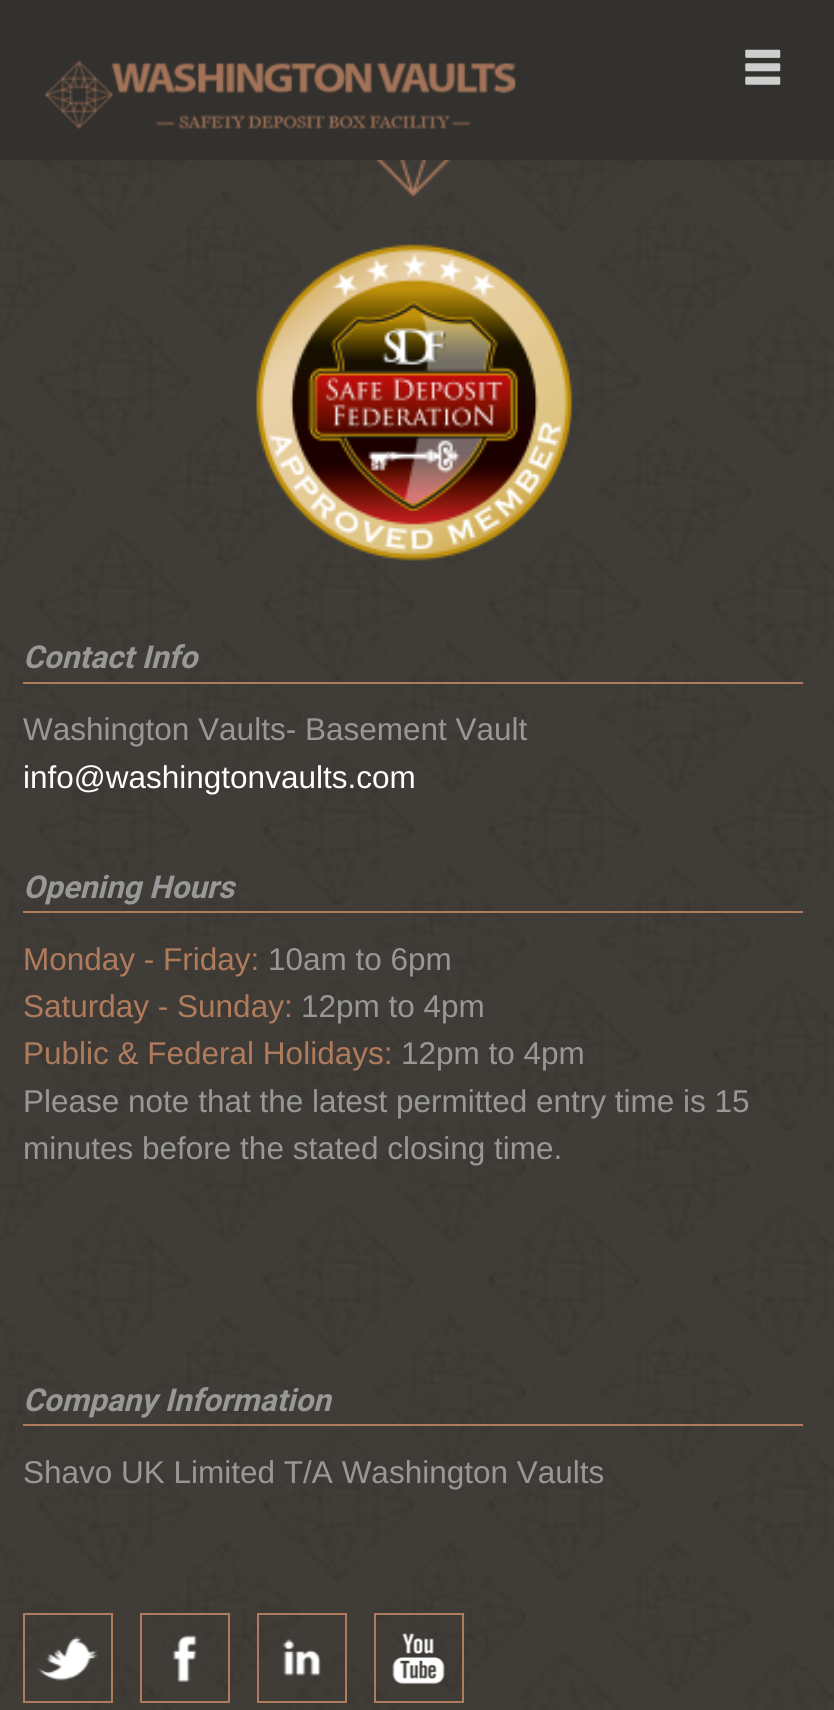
#include <cairo/cairo.h>
#include <math.h>
#include <stddef.h>

typedef struct { double x, y; const char *s; } line_t;
typedef struct { double x, y, w, h; unsigned color; } box_t;
static cairo_t *cr;

static void rgb(unsigned color)
{
	cairo_set_source_rgb(cr, (color >> 16) / 255.0, (color >> 8 & 255) / 255.0, (color & 255) / 255.0);
}

static void rrect(double x, double y, double w, double h, double r)
{
	cairo_new_sub_path(cr);
	cairo_arc(cr, x + w - r, y + h - r, r, 0, M_PI / 2);
	cairo_arc(cr, x + r, y + h - r, r, M_PI / 2, M_PI);
	cairo_arc(cr, x + r, y + r, r, M_PI, 1.5 * M_PI);
	cairo_arc(cr, x + w - r, y + r, r, 1.5 * M_PI, 2 * M_PI);
	cairo_close_path(cr);
}

static void soft_shadow(double x, double y, double w, double h, double r, double blur, double alpha)
{
	cairo_push_group_with_content(cr, CAIRO_CONTENT_ALPHA);
	cairo_set_operator(cr, CAIRO_OPERATOR_SOURCE);
	for (int i = 15; i >= -15 && fmin(w, h) + blur * i / 3 > 0; i -= 2) {
		double e = blur * i / 6;
		cairo_set_source_rgba(cr, 0, 0, 0, alpha * erfc((i - 1) / 8.5) / 2);
		rrect(x - e, y - e, w + 2 * e, h + 2 * e, fmax(0, fmin(r + e + blur * .6, fmin(w, h) / 2 + e)));
		cairo_fill(cr);
	}
	cairo_pattern_t *soft = cairo_pop_group(cr);
	cairo_mask(cr, soft);
	cairo_pattern_destroy(soft);
}

static void image(const char *path, double x, double y, double w, double h)
{
	cairo_surface_t *image = cairo_image_surface_create_from_png(path);
	cairo_save(cr);
	cairo_set_source_surface(cr, image, x, y);
	cairo_rectangle(cr, x, y, w, h);
	cairo_fill(cr);
	cairo_restore(cr);
	cairo_surface_destroy(image);
}

int main(void) {
	cairo_surface_t *surface = cairo_image_surface_create(CAIRO_FORMAT_RGB24, 834, 1710);
	cr = cairo_create(surface);
	cairo_font_options_t *options = cairo_font_options_create();
	cairo_font_options_set_hint_metrics(options, CAIRO_HINT_METRICS_OFF);
	cairo_font_options_set_hint_style(options, CAIRO_HINT_STYLE_NONE);
	cairo_set_font_options(cr, options);
	cairo_set_miter_limit(cr, 4);
	rgb(0xffffff);
	cairo_paint(cr);
	image("img/3.png", 0, 160, 834, 1550);
	image("img/4.png", 375, 160, 77, 37);
	rgb(0x000000);
	soft_shadow(0, 5, 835, 159, 0, 11, 0.05);
	rgb(0x33312e);
	cairo_rectangle(cr, 0, 0, 834, 160);
	cairo_fill(cr);
	image("img/1.png", 45, 60, 471, 69);
	image("img/2.png", 745, 49, 36, 36);
	image("img/5.png", 256, 244, 317, 317);
	{
		static const box_t items[] = {
			{23, 682, 780, 2, 0xaf7b5d},
			{23, 911, 780, 2, 0xaf7b5d},
			{23, 1424, 780, 2, 0xaf7b5d},
		};
		for (size_t i = 0; i < sizeof items / sizeof *items; i++) {
			rgb(items[i].color);
			cairo_rectangle(cr, items[i].x, items[i].y, items[i].w, items[i].h);
			cairo_fill(cr);
		}
	}
	cairo_rectangle(cr, 24, 1614, 88, 88);
	cairo_stroke(cr);
	image("img/6.png", 37, 1636, 61, 45);
	cairo_rectangle(cr, 141, 1614, 88, 88);
	cairo_stroke(cr);
	image("img/7.png", 172, 1635, 25, 47);
	cairo_rectangle(cr, 258, 1614, 88, 88);
	cairo_stroke(cr);
	image("img/8.png", 282, 1639, 39, 37);
	cairo_rectangle(cr, 375, 1614, 88, 88);
	cairo_stroke(cr);
	image("img/9.png", 392, 1633, 53, 51);
	cairo_select_font_face(cr, "Roboto", CAIRO_FONT_SLANT_ITALIC, CAIRO_FONT_WEIGHT_BOLD);
	cairo_set_font_size(cr, 31.5);
	rgb(0x989898);
	cairo_move_to(cr, 23, 668);
	cairo_show_text(cr, "Contact Info");
	cairo_select_font_face(cr, "Liberation Sans", CAIRO_FONT_SLANT_NORMAL, CAIRO_FONT_WEIGHT_NORMAL);
	cairo_move_to(cr, 23, 740);
	cairo_show_text(cr, "Washington Vaults- Basement Vault");
	rgb(0xffffff);
	cairo_move_to(cr, 23, 788);
	cairo_show_text(cr, "info@washingtonvaults.com");
	cairo_select_font_face(cr, "Roboto", CAIRO_FONT_SLANT_ITALIC, CAIRO_FONT_WEIGHT_BOLD);
	rgb(0x989898);
	cairo_move_to(cr, 23, 898);
	cairo_show_text(cr, "Opening Hours");
	cairo_select_font_face(cr, "Liberation Sans", CAIRO_FONT_SLANT_NORMAL, CAIRO_FONT_WEIGHT_NORMAL);
	rgb(0xb07b5c);
	cairo_move_to(cr, 23, 970);
	cairo_show_text(cr, "Monday - Friday:");
	rgb(0x989898);
	cairo_move_to(cr, 268, 970);
	cairo_show_text(cr, "10am to 6pm");
	rgb(0xb07b5c);
	cairo_move_to(cr, 23, 1017);
	cairo_show_text(cr, "Saturday - Sunday:");
	rgb(0x989898);
	cairo_move_to(cr, 301, 1017);
	cairo_show_text(cr, "12pm to 4pm");
	rgb(0xb07b5c);
	cairo_move_to(cr, 23, 1064);
	cairo_show_text(cr, "Public & Federal Holidays:");
	rgb(0x989898);
	{
		static const line_t items[] = {
			{401, 1064, "12pm to 4pm"},
			{23, 1112, "Please note that the latest permitted entry time is 15"},
			{23, 1159, "minutes before the stated closing time."},
		};
		for (size_t i = 0; i < sizeof items / sizeof *items; i++) {
			cairo_move_to(cr, items[i].x, items[i].y);
			cairo_show_text(cr, items[i].s);
		}
	}
	cairo_select_font_face(cr, "Roboto", CAIRO_FONT_SLANT_ITALIC, CAIRO_FONT_WEIGHT_BOLD);
	cairo_move_to(cr, 23, 1411);
	cairo_show_text(cr, "Company Information");
	cairo_select_font_face(cr, "Liberation Sans", CAIRO_FONT_SLANT_NORMAL, CAIRO_FONT_WEIGHT_NORMAL);
	cairo_move_to(cr, 23, 1483);
	cairo_show_text(cr, "Shavo UK Limited T/A Washington Vaults");
	cairo_surface_write_to_png(surface, "page.png");
	cairo_font_options_destroy(options);
	cairo_destroy(cr);
	cairo_surface_destroy(surface);
	return 0;
}
